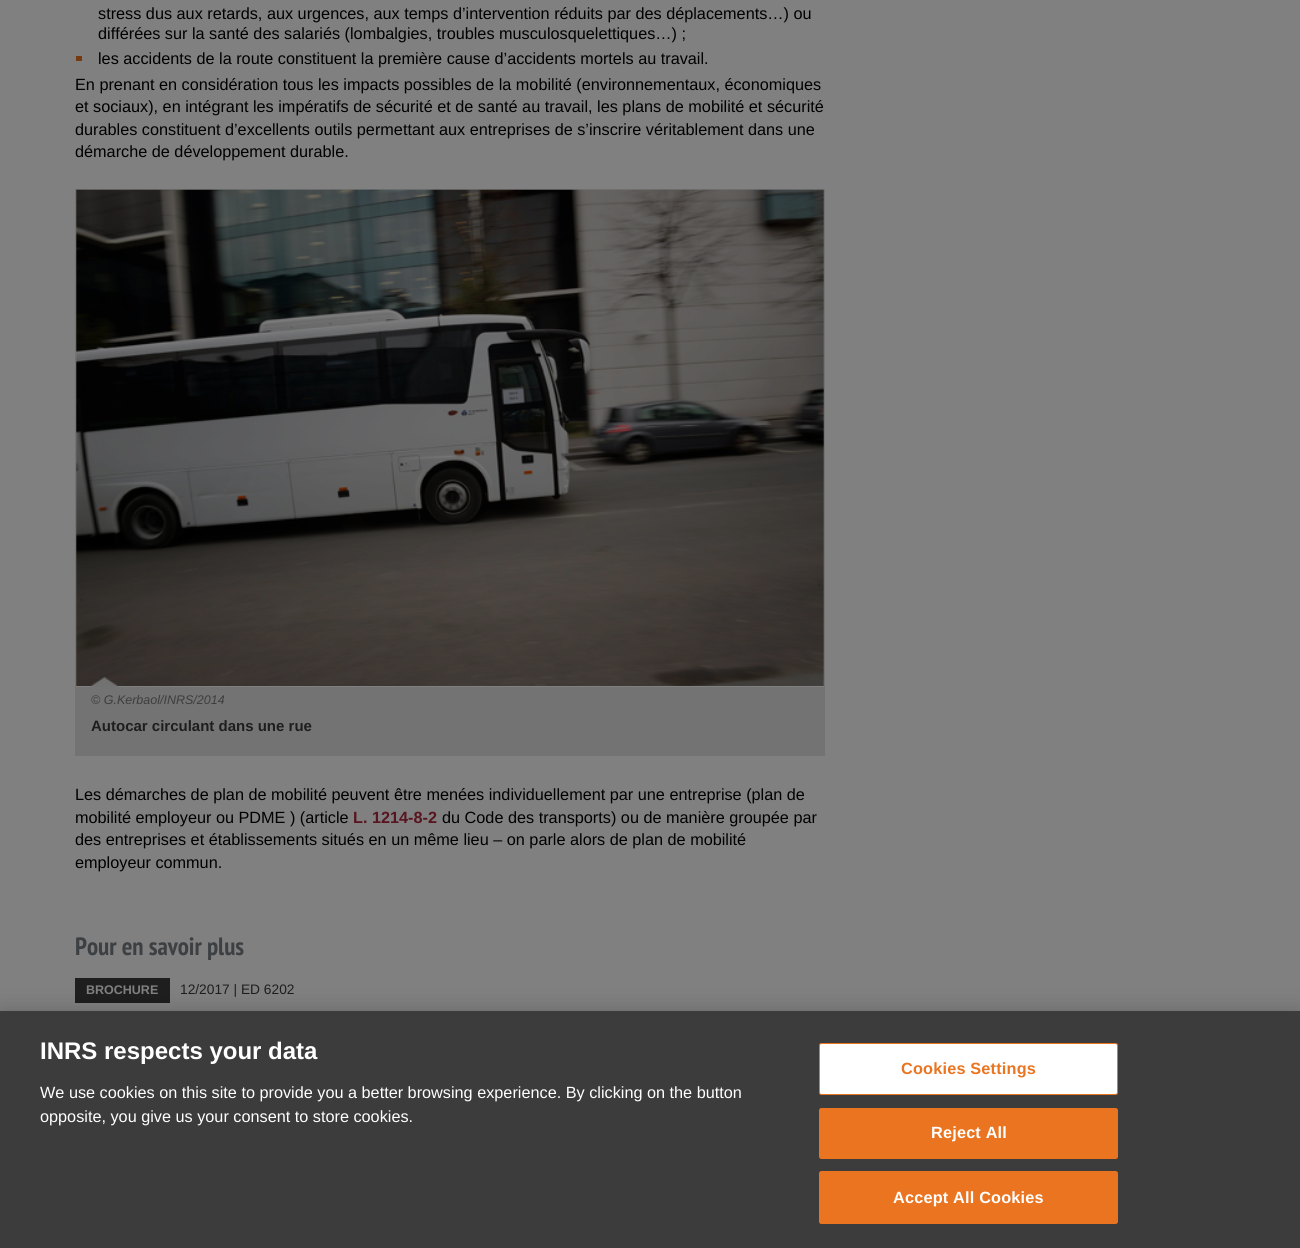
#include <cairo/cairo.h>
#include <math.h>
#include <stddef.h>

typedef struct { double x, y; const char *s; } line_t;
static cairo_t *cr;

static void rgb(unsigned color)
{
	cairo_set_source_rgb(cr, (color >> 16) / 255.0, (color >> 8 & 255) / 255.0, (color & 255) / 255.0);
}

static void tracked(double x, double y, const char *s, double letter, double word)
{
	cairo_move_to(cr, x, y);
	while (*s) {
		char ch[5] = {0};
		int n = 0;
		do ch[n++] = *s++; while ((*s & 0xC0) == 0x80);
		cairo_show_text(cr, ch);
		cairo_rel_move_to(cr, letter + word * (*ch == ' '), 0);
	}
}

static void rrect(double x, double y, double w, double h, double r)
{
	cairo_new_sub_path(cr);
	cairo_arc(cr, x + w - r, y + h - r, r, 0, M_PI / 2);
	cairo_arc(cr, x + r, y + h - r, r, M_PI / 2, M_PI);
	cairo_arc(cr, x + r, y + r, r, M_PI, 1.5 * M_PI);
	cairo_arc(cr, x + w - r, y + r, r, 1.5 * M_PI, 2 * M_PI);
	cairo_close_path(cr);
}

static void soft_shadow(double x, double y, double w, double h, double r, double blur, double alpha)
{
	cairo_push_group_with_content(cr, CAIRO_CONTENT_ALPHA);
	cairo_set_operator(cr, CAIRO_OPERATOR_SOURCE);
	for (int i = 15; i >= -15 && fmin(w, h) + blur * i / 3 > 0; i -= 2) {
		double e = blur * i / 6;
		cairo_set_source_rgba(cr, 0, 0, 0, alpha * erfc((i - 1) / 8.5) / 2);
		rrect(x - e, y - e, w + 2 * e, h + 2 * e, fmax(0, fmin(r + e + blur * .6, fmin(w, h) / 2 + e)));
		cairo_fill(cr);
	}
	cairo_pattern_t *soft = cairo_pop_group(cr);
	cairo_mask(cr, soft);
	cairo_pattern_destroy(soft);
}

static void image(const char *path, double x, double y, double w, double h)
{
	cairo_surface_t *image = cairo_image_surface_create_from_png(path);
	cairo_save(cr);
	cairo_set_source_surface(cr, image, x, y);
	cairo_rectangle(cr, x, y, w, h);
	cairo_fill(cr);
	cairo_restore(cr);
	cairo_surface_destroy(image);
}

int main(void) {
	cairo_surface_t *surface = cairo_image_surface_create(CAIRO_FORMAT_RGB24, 1300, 1248);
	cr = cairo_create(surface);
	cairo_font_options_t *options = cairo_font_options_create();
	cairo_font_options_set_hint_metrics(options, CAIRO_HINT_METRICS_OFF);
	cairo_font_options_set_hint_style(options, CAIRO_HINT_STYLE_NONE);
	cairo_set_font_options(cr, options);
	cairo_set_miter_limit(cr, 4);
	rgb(0x808080);
	cairo_paint(cr);
	rgb(0x753a10);
	cairo_rectangle(cr, 76, 56, 6, 5);
	cairo_fill(cr);
	cairo_rectangle(cr, 75.5, 189.5, 749, 498);
	rgb(0x737373);
	cairo_set_line_width(cr, 1);
	cairo_stroke(cr);
	image("img/1.png", 76, 189, 748, 497);
	cairo_rectangle(cr, 75, 688, 750, 68);
	cairo_fill(cr);
	image("img/2.png", 90, 677, 29, 10);
	rgb(0x1e1e1e);
	cairo_rectangle(cr, 75, 978, 95, 25);
	cairo_fill(cr);
	rgb(0x000000);
	soft_shadow(0, 1011, 1300, 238, 0, 11, 0.2);
	rgb(0x3c3c3c);
	cairo_rectangle(cr, 0, 1011, 1300, 237);
	cairo_fill(cr);
	rgb(0xffffff);
	rrect(819.5, 1043.5, 298, 51, 2);
	cairo_fill_preserve(cr);
	rgb(0xea7420);
	cairo_stroke(cr);
	rrect(819.5, 1108.5, 298, 50, 2);
	cairo_fill_preserve(cr);
	cairo_stroke(cr);
	rrect(819.5, 1171.5, 298, 52, 2);
	cairo_fill_preserve(cr);
	cairo_stroke(cr);
	cairo_select_font_face(cr, "Liberation Sans", CAIRO_FONT_SLANT_NORMAL, CAIRO_FONT_WEIGHT_NORMAL);
	cairo_set_font_size(cr, 16.25);
	rgb(0x000000);
	{
		static const line_t items[] = {
			{98, 19, "stress dus aux retards, aux urgences, aux temps d’intervention réduits par des déplacements…) ou"},
			{98, 39, "différées sur la santé des salariés (lombalgies, troubles musculosquelettiques…) ;"},
			{98, 64, "les accidents de la route constituent la première cause d’accidents mortels au travail."},
			{75, 90, "En prenant en considération tous les impacts possibles de la mobilité (environnementaux, économiques"},
			{75, 112, "et sociaux), en intégrant les impératifs de sécurité et de santé au travail, les plans de mobilité et sécurité"},
			{75, 135, "durables constituent d’excellents outils permettant aux entreprises de s’inscrire véritablement dans une"},
			{75, 157, "démarche de développement durable."},
		};
		for (size_t i = 0; i < sizeof items / sizeof *items; i++) {
			cairo_move_to(cr, items[i].x, items[i].y);
			cairo_show_text(cr, items[i].s);
		}
	}
	cairo_select_font_face(cr, "Liberation Sans", CAIRO_FONT_SLANT_ITALIC, CAIRO_FONT_WEIGHT_NORMAL);
	cairo_set_font_size(cr, 12.5);
	rgb(0x3d3d3d);
	cairo_move_to(cr, 91, 704);
	cairo_show_text(cr, "© G.Kerbaol/INRS/2014");
	cairo_select_font_face(cr, "Liberation Sans", CAIRO_FONT_SLANT_NORMAL, CAIRO_FONT_WEIGHT_BOLD);
	cairo_set_font_size(cr, 15);
	rgb(0x1e1e1e);
	cairo_move_to(cr, 91, 731);
	cairo_show_text(cr, "Autocar circulant dans une rue");
	cairo_select_font_face(cr, "Liberation Sans", CAIRO_FONT_SLANT_NORMAL, CAIRO_FONT_WEIGHT_NORMAL);
	cairo_set_font_size(cr, 16.25);
	rgb(0x000000);
	cairo_move_to(cr, 75, 800);
	cairo_show_text(cr, "Les démarches de plan de mobilité peuvent être menées individuellement par une entreprise (plan de");
	cairo_move_to(cr, 75, 823);
	cairo_show_text(cr, "mobilité employeur ou PDME ) (article");
	cairo_select_font_face(cr, "Liberation Sans", CAIRO_FONT_SLANT_NORMAL, CAIRO_FONT_WEIGHT_BOLD);
	rgb(0x58141f);
	cairo_move_to(cr, 353, 823);
	cairo_show_text(cr, "L. 1214-8-2");
	cairo_select_font_face(cr, "Liberation Sans", CAIRO_FONT_SLANT_NORMAL, CAIRO_FONT_WEIGHT_NORMAL);
	rgb(0x000000);
	{
		static const line_t items[] = {
			{442, 823, "du Code des transports) ou de manière groupée par"},
			{75, 845, "des entreprises et établissements situés en un même lieu – on parle alors de plan de mobilité"},
			{75, 868, "employeur commun."},
		};
		for (size_t i = 0; i < sizeof items / sizeof *items; i++) {
			cairo_move_to(cr, items[i].x, items[i].y);
			cairo_show_text(cr, items[i].s);
		}
	}
	cairo_select_font_face(cr, "PT Sans Narrow", CAIRO_FONT_SLANT_NORMAL, CAIRO_FONT_WEIGHT_BOLD);
	cairo_set_font_size(cr, 25);
	rgb(0x3c4043);
	cairo_move_to(cr, 75, 955);
	cairo_show_text(cr, "Pour en savoir plus");
	cairo_select_font_face(cr, "Liberation Sans", CAIRO_FONT_SLANT_NORMAL, CAIRO_FONT_WEIGHT_BOLD);
	cairo_set_font_size(cr, 12.5);
	rgb(0x808080);
	cairo_move_to(cr, 86, 994);
	cairo_show_text(cr, "BROCHURE");
	cairo_select_font_face(cr, "Liberation Sans", CAIRO_FONT_SLANT_NORMAL, CAIRO_FONT_WEIGHT_NORMAL);
	cairo_set_font_size(cr, 13.75);
	rgb(0x1e1e1e);
	cairo_move_to(cr, 180, 994);
	cairo_show_text(cr, "12/2017 | ED 6202");
	cairo_select_font_face(cr, "Liberation Sans", CAIRO_FONT_SLANT_NORMAL, CAIRO_FONT_WEIGHT_BOLD);
	cairo_set_font_size(cr, 24);
	rgb(0xffffff);
	cairo_move_to(cr, 40, 1059);
	cairo_show_text(cr, "INRS respects your data");
	cairo_select_font_face(cr, "Liberation Sans", CAIRO_FONT_SLANT_NORMAL, CAIRO_FONT_WEIGHT_NORMAL);
	cairo_set_font_size(cr, 16.25);
	cairo_move_to(cr, 40, 1098);
	cairo_show_text(cr, "We use cookies on this site to provide you a better browsing experience. By clicking on the button");
	cairo_move_to(cr, 40, 1122);
	cairo_show_text(cr, "opposite, you give us your consent to store cookies.");
	cairo_select_font_face(cr, "Liberation Sans", CAIRO_FONT_SLANT_NORMAL, CAIRO_FONT_WEIGHT_BOLD);
	rgb(0xea7420);
	tracked(901, 1074, "Cookies Settings", 0.2, 0);
	rgb(0xffffff);
	tracked(931, 1138, "Reject All", 0.2, 0);
	tracked(893, 1203, "Accept All Cookies", 0.2, 0);
	cairo_surface_write_to_png(surface, "page.png");
	cairo_font_options_destroy(options);
	cairo_destroy(cr);
	cairo_surface_destroy(surface);
	return 0;
}
